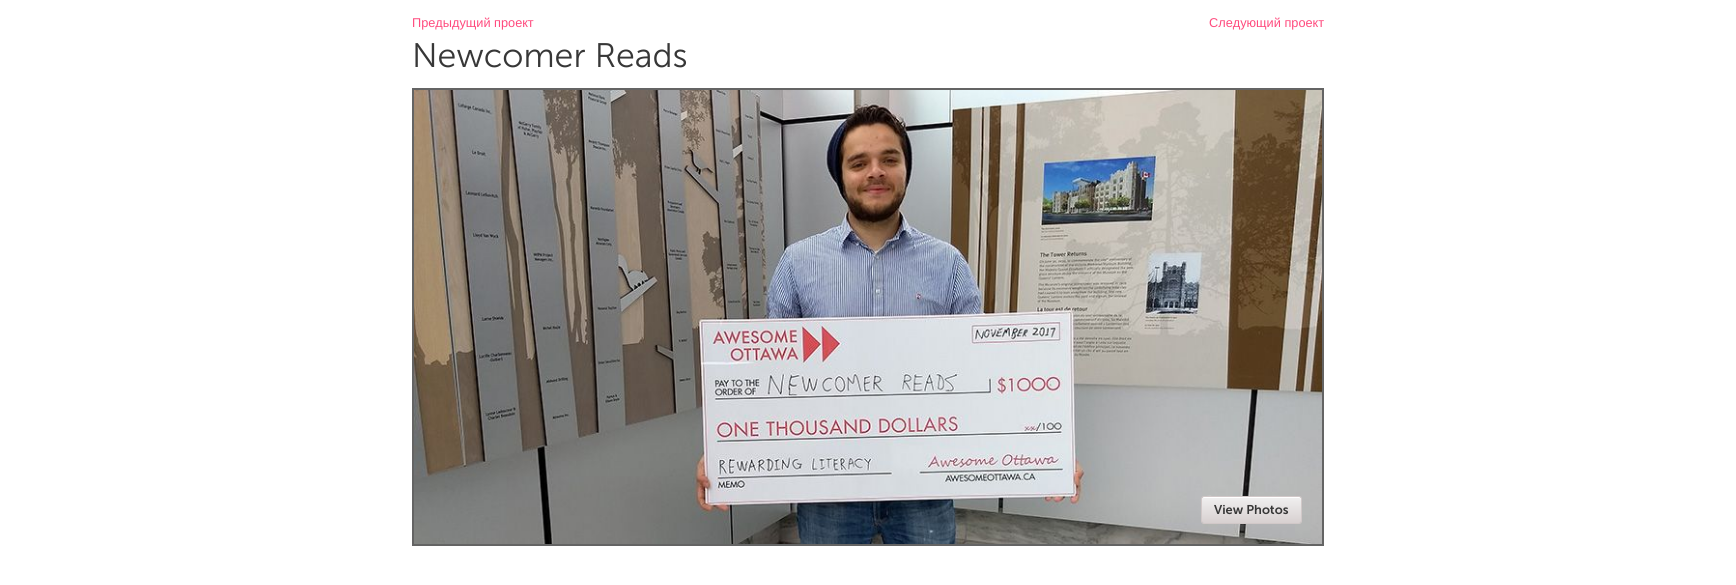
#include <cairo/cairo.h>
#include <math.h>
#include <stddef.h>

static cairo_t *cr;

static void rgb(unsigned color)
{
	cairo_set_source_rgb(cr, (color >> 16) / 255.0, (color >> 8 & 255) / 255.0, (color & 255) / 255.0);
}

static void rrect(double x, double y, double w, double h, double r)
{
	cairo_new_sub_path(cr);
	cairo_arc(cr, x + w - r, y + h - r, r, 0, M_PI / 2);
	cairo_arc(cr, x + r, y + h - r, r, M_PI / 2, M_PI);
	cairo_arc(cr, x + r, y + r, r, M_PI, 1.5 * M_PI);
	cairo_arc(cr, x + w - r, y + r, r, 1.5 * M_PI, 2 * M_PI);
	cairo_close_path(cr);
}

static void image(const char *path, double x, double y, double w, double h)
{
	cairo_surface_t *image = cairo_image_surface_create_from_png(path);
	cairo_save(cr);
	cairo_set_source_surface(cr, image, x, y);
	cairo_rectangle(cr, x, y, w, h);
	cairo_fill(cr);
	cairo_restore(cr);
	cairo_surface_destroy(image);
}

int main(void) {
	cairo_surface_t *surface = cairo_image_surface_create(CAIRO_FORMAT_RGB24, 1736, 585);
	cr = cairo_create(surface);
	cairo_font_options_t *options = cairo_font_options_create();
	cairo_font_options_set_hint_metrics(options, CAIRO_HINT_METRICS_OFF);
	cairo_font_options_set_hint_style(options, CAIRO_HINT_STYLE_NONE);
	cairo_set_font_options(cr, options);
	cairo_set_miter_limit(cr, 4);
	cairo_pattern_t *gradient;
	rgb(0xffffff);
	cairo_paint(cr);
	rgb(0x646464);
	cairo_rectangle(cr, 412, 88, 912, 458);
	cairo_fill(cr);
	image("img/1.png", 414, 90, 908, 454);
	gradient = cairo_pattern_create_linear(1252, 497, 1252, 523);
	cairo_pattern_add_color_stop_rgba(gradient, 0, 0.941, 0.941, 0.941, 1);
	cairo_pattern_add_color_stop_rgba(gradient, 1, 0.847, 0.816, 0.816, 1);
	cairo_set_source(cr, gradient);
	cairo_pattern_destroy(gradient);
	rrect(1202, 497, 99, 26, 2);
	cairo_fill(cr);
	rgb(0xffffff);
	cairo_new_path(cr);
	cairo_move_to(cr, 1204, 498);
	cairo_line_to(cr, 1299, 498);
	cairo_curve_to(cr, 1300, 498, 1301, 499, 1301, 500);
	cairo_curve_to(cr, 1301, 499, 1301, 497, 1299, 497);
	cairo_line_to(cr, 1220, 497);
	cairo_curve_to(cr, 1218, 497, 1202, 493, 1202, 500);
	cairo_curve_to(cr, 1202, 499, 1203, 498, 1204, 498);
	cairo_close_path(cr);
	cairo_fill(cr);
	rrect(1201.5, 496.5, 100, 27, 2.5);
	rgb(0xd1c8c8);
	cairo_set_line_width(cr, 1);
	cairo_stroke(cr);
	cairo_select_font_face(cr, "Liberation Sans", CAIRO_FONT_SLANT_NORMAL, CAIRO_FONT_WEIGHT_NORMAL);
	cairo_set_font_size(cr, 12.75);
	rgb(0xff4b7e);
	cairo_move_to(cr, 412, 27);
	cairo_show_text(cr, "Предыдущий проект");
	cairo_move_to(cr, 1209, 27);
	cairo_show_text(cr, "Следующий проект");
	cairo_select_font_face(cr, "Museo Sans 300 Light", CAIRO_FONT_SLANT_NORMAL, CAIRO_FONT_WEIGHT_NORMAL);
	cairo_set_font_size(cr, 34);
	rgb(0x373737);
	cairo_move_to(cr, 412, 67);
	cairo_show_text(cr, "Newcomer Reads");
	cairo_select_font_face(cr, "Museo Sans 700 SemiBold", CAIRO_FONT_SLANT_NORMAL, CAIRO_FONT_WEIGHT_NORMAL);
	cairo_set_font_size(cr, 12.75);
	cairo_move_to(cr, 1214, 514);
	cairo_show_text(cr, "View Photos");
	cairo_surface_write_to_png(surface, "page.png");
	cairo_font_options_destroy(options);
	cairo_destroy(cr);
	cairo_surface_destroy(surface);
	return 0;
}
